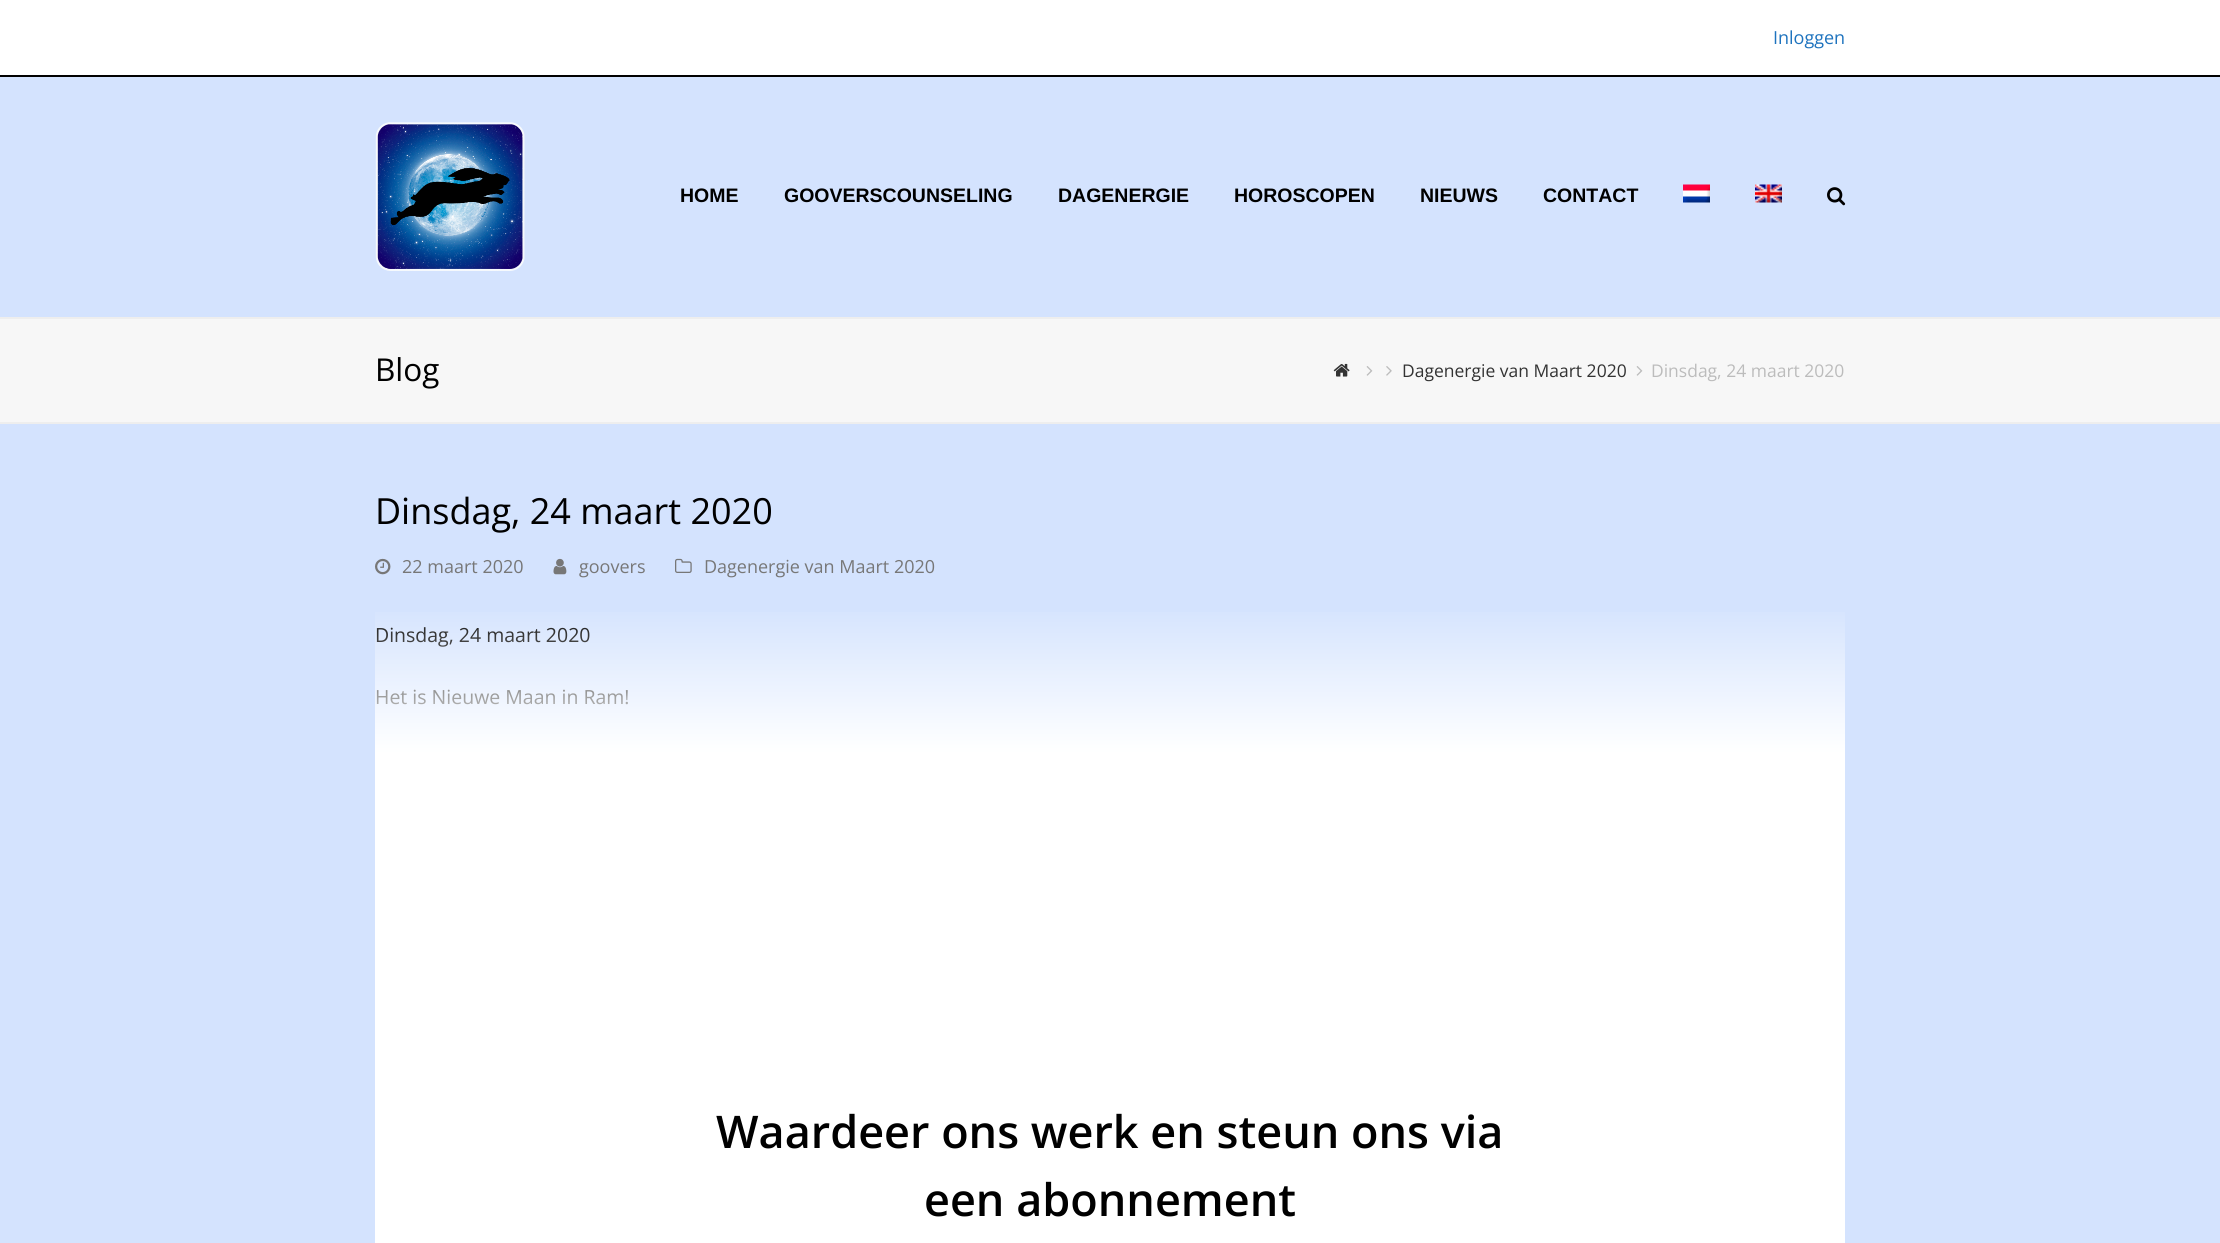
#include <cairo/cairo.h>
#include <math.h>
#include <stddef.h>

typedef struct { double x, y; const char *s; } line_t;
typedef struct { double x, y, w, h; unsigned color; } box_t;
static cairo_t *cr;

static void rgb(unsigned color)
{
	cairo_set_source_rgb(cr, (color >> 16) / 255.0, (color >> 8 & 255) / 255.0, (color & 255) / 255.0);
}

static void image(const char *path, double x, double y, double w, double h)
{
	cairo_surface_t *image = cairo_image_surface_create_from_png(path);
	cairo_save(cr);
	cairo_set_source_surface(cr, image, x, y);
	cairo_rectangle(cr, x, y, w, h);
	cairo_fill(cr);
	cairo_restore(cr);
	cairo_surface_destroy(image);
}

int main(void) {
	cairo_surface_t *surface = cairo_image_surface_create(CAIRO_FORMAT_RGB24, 2220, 1243);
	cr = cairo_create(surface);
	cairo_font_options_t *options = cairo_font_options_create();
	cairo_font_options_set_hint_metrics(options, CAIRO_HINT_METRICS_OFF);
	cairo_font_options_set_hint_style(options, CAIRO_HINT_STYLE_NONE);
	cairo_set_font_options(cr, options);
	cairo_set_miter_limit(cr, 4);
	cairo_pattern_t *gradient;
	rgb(0xd4e3fe);
	cairo_paint(cr);
	rgb(0xffffff);
	cairo_rectangle(cr, 0, 0, 2220, 75);
	cairo_fill(cr);
	rgb(0x000000);
	cairo_rectangle(cr, 0, 75, 2220, 2);
	cairo_fill(cr);
	image("img/1.png", 375, 122, 150, 149);
	image("img/2.png", 1683, 184, 27, 19);
	image("img/3.png", 1755, 184, 27, 19);
	image("img/4.png", 1827, 187, 19, 19);
	{
		static const box_t items[] = {
			{0, 319, 2220, 103, 0xf7f7f7},
			{0, 317, 2220, 2, 0xeeeeee},
			{0, 422, 2220, 2, 0xeeeeee},
		};
		for (size_t i = 0; i < sizeof items / sizeof *items; i++) {
			rgb(items[i].color);
			cairo_rectangle(cr, items[i].x, items[i].y, items[i].w, items[i].h);
			cairo_fill(cr);
		}
	}
	image("img/5.png", 1333, 363, 17, 14);
	image("img/6.png", 1366, 366, 7, 10);
	image("img/7.png", 1386, 366, 6, 10);
	image("img/6.png", 1636, 366, 7, 10);
	image("img/8.png", 375, 558, 16, 17);
	image("img/9.png", 553, 558, 14, 17);
	image("img/10.png", 675, 558, 17, 15);
	rgb(0xffffff);
	cairo_rectangle(cr, 375, 753, 1470, 490);
	cairo_fill(cr);
	cairo_select_font_face(cr, "Open Sans", CAIRO_FONT_SLANT_NORMAL, CAIRO_FONT_WEIGHT_NORMAL);
	cairo_set_font_size(cr, 18);
	rgb(0x1e73be);
	cairo_move_to(cr, 1773, 44);
	cairo_show_text(cr, "Inloggen");
	cairo_select_font_face(cr, "Liberation Sans", CAIRO_FONT_SLANT_NORMAL, CAIRO_FONT_WEIGHT_BOLD);
	cairo_set_font_size(cr, 19.5);
	rgb(0x000000);
	{
		static const line_t items[] = {
			{680, 202, "HOME"},
			{784, 202, "GOOVERSCOUNSELING"},
			{1058, 202, "DAGENERGIE"},
			{1234, 202, "HOROSCOPEN"},
			{1420, 202, "NIEUWS"},
			{1543, 202, "CONTACT"},
		};
		for (size_t i = 0; i < sizeof items / sizeof *items; i++) {
			cairo_move_to(cr, items[i].x, items[i].y);
			cairo_show_text(cr, items[i].s);
		}
	}
	cairo_select_font_face(cr, "Open Sans", CAIRO_FONT_SLANT_NORMAL, CAIRO_FONT_WEIGHT_NORMAL);
	cairo_set_font_size(cr, 31.5);
	cairo_move_to(cr, 375, 381);
	cairo_show_text(cr, "Blog");
	cairo_set_font_size(cr, 17.5);
	rgb(0x333333);
	cairo_move_to(cr, 1402, 377);
	cairo_show_text(cr, "Dagenergie van Maart 2020");
	rgb(0xbcbcbc);
	cairo_move_to(cr, 1651, 377);
	cairo_show_text(cr, "Dinsdag, 24 maart 2020");
	cairo_set_font_size(cr, 36);
	rgb(0x000000);
	cairo_move_to(cr, 375, 524);
	cairo_show_text(cr, "Dinsdag, 24 maart 2020");
	cairo_set_font_size(cr, 18);
	rgb(0x777777);
	{
		static const line_t items[] = {
			{402, 573, "22 maart 2020"},
			{579, 573, "goovers"},
			{704, 573, "Dagenergie van Maart 2020"},
		};
		for (size_t i = 0; i < sizeof items / sizeof *items; i++) {
			cairo_move_to(cr, items[i].x, items[i].y);
			cairo_show_text(cr, items[i].s);
		}
	}
	cairo_set_font_size(cr, 19.5);
	rgb(0x000000);
	cairo_move_to(cr, 375, 642);
	cairo_show_text(cr, "Dinsdag, 24 maart 2020");
	cairo_move_to(cr, 375, 704);
	cairo_show_text(cr, "Het is Nieuwe Maan in Ram!");
	gradient = cairo_pattern_create_linear(1110, 603, 1110, 753);
	cairo_pattern_add_color_stop_rgba(gradient, 0, 1, 1, 1, 0);
	cairo_pattern_add_color_stop_rgba(gradient, 1, 1, 1, 1, 1);
	cairo_set_source(cr, gradient);
	cairo_pattern_destroy(gradient);
	cairo_rectangle(cr, 375, 612, 1470, 141);
	cairo_fill(cr);
	cairo_select_font_face(cr, "Open Sans SemiBold", CAIRO_FONT_SLANT_NORMAL, CAIRO_FONT_WEIGHT_NORMAL);
	cairo_set_font_size(cr, 45);
	rgb(0x000000);
	cairo_move_to(cr, 716, 1148);
	cairo_show_text(cr, "Waardeer ons werk en steun ons via");
	cairo_move_to(cr, 924, 1216);
	cairo_show_text(cr, "een abonnement");
	cairo_surface_write_to_png(surface, "page.png");
	cairo_font_options_destroy(options);
	cairo_destroy(cr);
	cairo_surface_destroy(surface);
	return 0;
}
